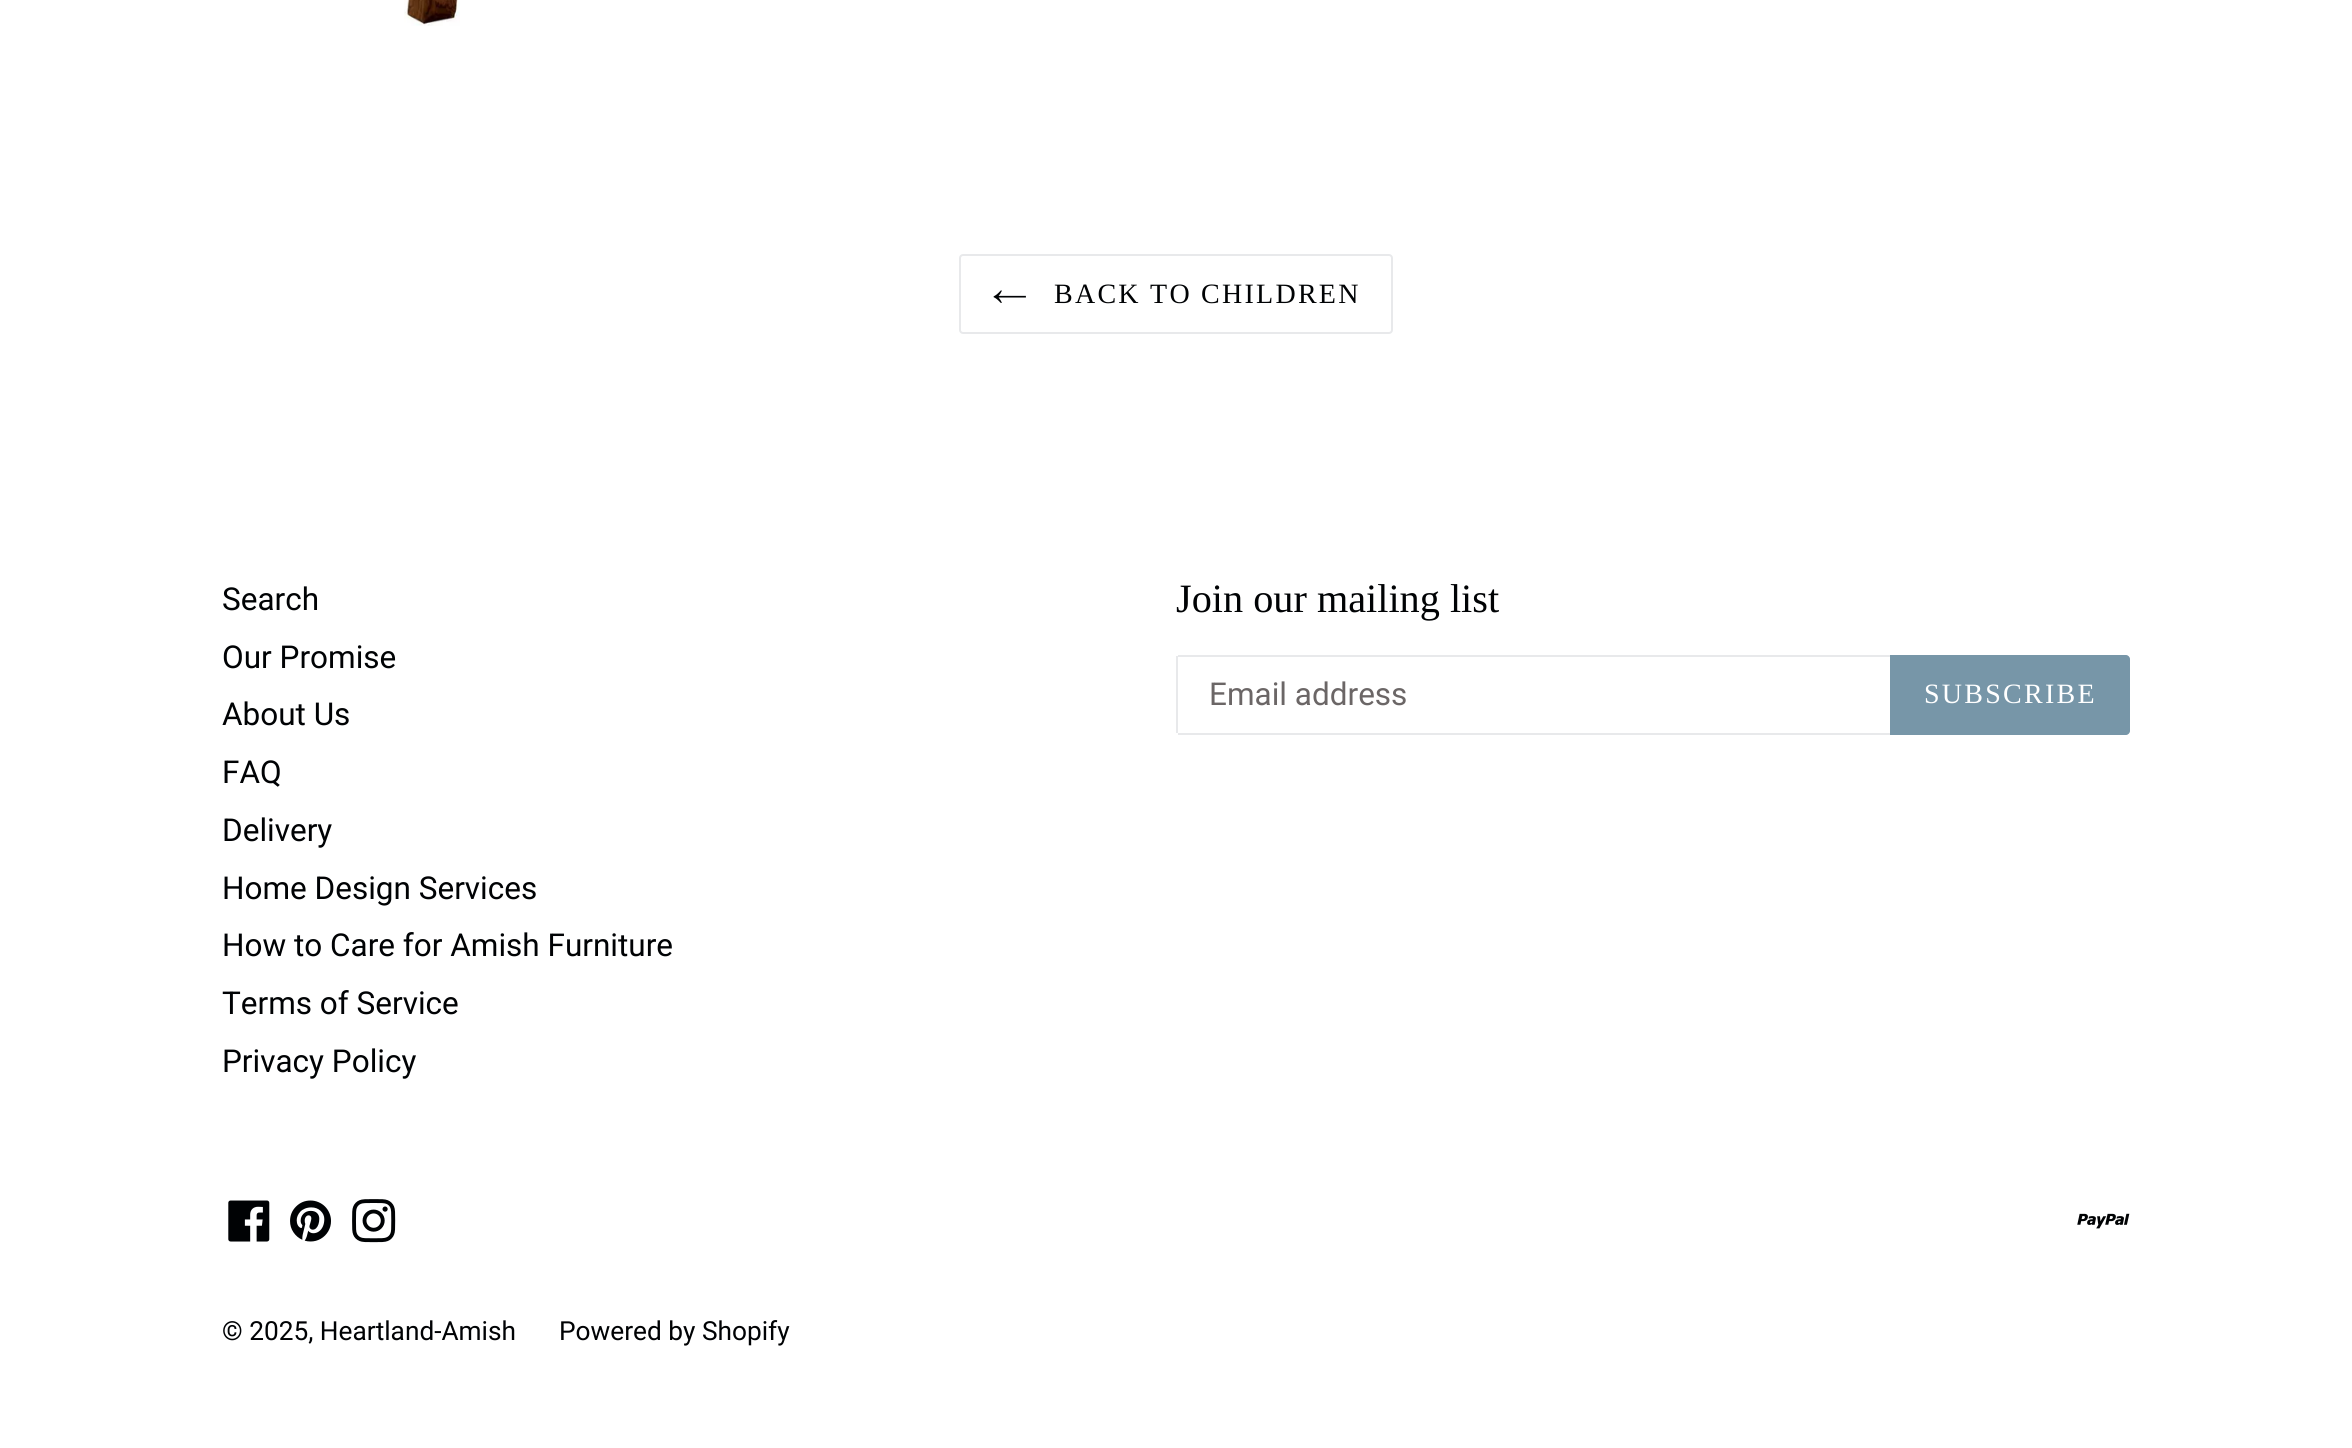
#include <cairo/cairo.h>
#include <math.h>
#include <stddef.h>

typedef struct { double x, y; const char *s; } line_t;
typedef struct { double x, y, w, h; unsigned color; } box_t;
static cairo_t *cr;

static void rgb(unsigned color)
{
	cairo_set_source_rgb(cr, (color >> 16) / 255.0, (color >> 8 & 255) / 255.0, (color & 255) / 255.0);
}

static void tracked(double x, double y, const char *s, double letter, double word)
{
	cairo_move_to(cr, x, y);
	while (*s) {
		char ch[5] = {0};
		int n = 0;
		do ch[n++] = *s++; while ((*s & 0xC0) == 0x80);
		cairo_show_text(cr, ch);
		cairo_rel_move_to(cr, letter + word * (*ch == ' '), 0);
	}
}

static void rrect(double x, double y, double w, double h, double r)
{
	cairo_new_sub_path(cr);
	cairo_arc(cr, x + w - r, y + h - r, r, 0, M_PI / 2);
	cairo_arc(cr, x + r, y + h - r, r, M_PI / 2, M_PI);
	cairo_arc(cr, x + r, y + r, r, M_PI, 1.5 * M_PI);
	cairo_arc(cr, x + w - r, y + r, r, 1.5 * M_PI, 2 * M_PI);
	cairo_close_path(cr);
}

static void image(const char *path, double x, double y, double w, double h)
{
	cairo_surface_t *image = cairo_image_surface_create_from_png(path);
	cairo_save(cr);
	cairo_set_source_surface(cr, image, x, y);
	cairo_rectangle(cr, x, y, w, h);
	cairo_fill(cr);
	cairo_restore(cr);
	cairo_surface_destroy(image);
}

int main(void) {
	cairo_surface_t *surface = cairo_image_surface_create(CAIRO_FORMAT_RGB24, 2352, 1448);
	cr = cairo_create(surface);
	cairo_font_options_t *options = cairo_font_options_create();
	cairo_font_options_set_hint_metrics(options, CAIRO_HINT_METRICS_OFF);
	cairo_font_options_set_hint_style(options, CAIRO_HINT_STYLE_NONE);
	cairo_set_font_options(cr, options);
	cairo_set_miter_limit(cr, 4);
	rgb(0xffffff);
	cairo_paint(cr);
	image("img/1.png", 404, 0, 56, 26);
	rrect(960, 255, 432, 78, 3);
	rgb(0xe8e9eb);
	cairo_stroke(cr);
	image("img/2.png", 993, 290, 33, 13);
	{
		static const box_t items[] = {
			{1178, 655, 712, 2, 0xe8e9eb},
			{1178, 733, 712, 2, 0xe8e9eb},
			{1176, 656, 2, 77, 0xe8e9eb},
		};
		for (size_t i = 0; i < sizeof items / sizeof *items; i++) {
			rgb(items[i].color);
			cairo_rectangle(cr, items[i].x, items[i].y, items[i].w, items[i].h);
			cairo_fill(cr);
		}
	}
	rgb(0x7796a8);
	cairo_new_path(cr);
	cairo_move_to(cr, 1890, 655);
	cairo_line_to(cr, 2126, 655);
	cairo_curve_to(cr, 2128, 655, 2130, 657, 2130, 659);
	cairo_line_to(cr, 2130, 731);
	cairo_curve_to(cr, 2130, 733, 2128, 735, 2126, 735);
	cairo_line_to(cr, 1890, 735);
	cairo_close_path(cr);
	cairo_fill(cr);
	image("img/3.png", 228, 1200, 42, 42);
	image("img/4.png", 290, 1200, 41, 42);
	image("img/5.png", 352, 1199, 44, 44);
	image("img/6.png", 2077, 1213, 53, 16);
	cairo_select_font_face(cr, "Liberation Serif", CAIRO_FONT_SLANT_NORMAL, CAIRO_FONT_WEIGHT_NORMAL);
	cairo_set_font_size(cr, 28);
	rgb(0x000204);
	tracked(1054, 303, "BACK TO CHILDREN", 2.25, 0);
	cairo_select_font_face(cr, "Roboto", CAIRO_FONT_SLANT_NORMAL, CAIRO_FONT_WEIGHT_NORMAL);
	cairo_set_font_size(cr, 31.5);
	{
		static const line_t items[] = {
			{222, 610, "Search"},
			{222, 668, "Our Promise"},
			{222, 725, "About Us"},
			{222, 783, "FAQ"},
			{222, 841, "Delivery"},
			{222, 899, "Home Design Services"},
			{222, 956, "How to Care for Amish Furniture"},
			{222, 1014, "Terms of Service"},
			{222, 1072, "Privacy Policy"},
		};
		for (size_t i = 0; i < sizeof items / sizeof *items; i++) {
			cairo_move_to(cr, items[i].x, items[i].y);
			cairo_show_text(cr, items[i].s);
		}
	}
	cairo_select_font_face(cr, "Liberation Serif", CAIRO_FONT_SLANT_NORMAL, CAIRO_FONT_WEIGHT_NORMAL);
	cairo_set_font_size(cr, 40.25);
	cairo_move_to(cr, 1176, 612);
	cairo_show_text(cr, "Join our mailing list");
	cairo_select_font_face(cr, "Roboto", CAIRO_FONT_SLANT_NORMAL, CAIRO_FONT_WEIGHT_NORMAL);
	cairo_set_font_size(cr, 31.5);
	rgb(0x6b6666);
	cairo_move_to(cr, 1209, 705);
	cairo_show_text(cr, "Email address");
	cairo_select_font_face(cr, "Liberation Serif", CAIRO_FONT_SLANT_NORMAL, CAIRO_FONT_WEIGHT_NORMAL);
	cairo_set_font_size(cr, 28);
	rgb(0xffffff);
	tracked(1924, 703, "SUBSCRIBE", 2.25, 0);
	cairo_select_font_face(cr, "Roboto", CAIRO_FONT_SLANT_NORMAL, CAIRO_FONT_WEIGHT_NORMAL);
	cairo_set_font_size(cr, 26.25);
	rgb(0x000204);
	cairo_move_to(cr, 222, 1340);
	cairo_show_text(cr, "© 2025, Heartland-Amish");
	cairo_move_to(cr, 559, 1340);
	cairo_show_text(cr, "Powered by Shopify");
	cairo_surface_write_to_png(surface, "page.png");
	cairo_font_options_destroy(options);
	cairo_destroy(cr);
	cairo_surface_destroy(surface);
	return 0;
}
